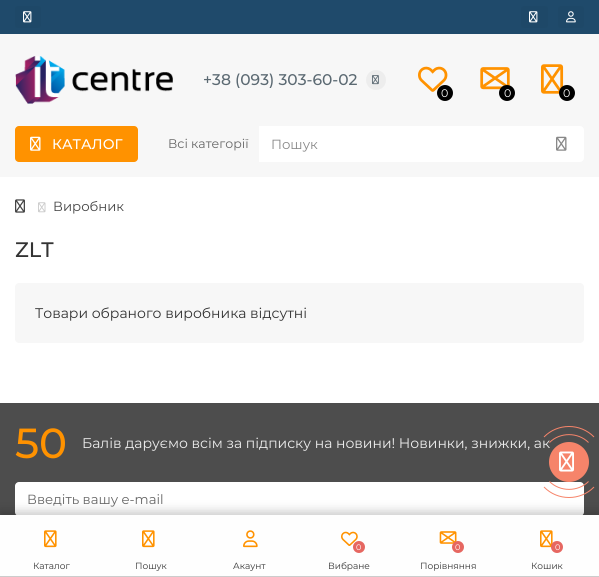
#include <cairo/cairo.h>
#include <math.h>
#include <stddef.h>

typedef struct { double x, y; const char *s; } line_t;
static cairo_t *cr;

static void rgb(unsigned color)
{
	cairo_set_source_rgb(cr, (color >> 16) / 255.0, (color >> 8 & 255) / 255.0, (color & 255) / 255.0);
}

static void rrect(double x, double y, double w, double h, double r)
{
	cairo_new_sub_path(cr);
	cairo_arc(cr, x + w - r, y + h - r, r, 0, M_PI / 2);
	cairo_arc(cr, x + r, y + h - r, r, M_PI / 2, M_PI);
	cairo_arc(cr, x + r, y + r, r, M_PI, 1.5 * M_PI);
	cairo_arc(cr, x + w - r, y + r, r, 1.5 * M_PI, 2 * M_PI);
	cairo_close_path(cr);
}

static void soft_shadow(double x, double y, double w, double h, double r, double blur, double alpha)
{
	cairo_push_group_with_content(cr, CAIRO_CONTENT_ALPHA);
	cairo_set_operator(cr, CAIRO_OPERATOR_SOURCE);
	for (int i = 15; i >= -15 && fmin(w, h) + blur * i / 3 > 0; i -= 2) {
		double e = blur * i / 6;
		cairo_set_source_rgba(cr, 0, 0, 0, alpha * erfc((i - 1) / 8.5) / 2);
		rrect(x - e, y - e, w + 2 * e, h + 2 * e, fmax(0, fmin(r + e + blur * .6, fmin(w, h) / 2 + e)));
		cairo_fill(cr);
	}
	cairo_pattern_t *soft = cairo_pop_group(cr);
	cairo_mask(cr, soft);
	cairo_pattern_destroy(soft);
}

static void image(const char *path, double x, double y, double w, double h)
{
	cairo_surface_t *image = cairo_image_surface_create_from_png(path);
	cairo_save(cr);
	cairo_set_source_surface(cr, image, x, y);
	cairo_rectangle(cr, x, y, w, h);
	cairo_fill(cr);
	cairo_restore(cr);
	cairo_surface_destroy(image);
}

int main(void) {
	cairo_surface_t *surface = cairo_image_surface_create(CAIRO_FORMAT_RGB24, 599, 577);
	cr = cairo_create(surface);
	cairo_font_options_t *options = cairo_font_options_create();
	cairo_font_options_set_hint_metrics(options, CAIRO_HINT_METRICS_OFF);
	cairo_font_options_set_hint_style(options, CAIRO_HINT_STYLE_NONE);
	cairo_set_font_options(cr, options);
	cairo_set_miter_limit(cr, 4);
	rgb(0xffffff);
	cairo_paint(cr);
	rgb(0xf7f7f7);
	cairo_rectangle(cr, 0, 34, 599, 143);
	cairo_fill(cr);
	rgb(0x1f4a6b);
	cairo_rectangle(cr, 0, 0, 599, 34);
	cairo_fill(cr);
	rgb(0x1e4868);
	rrect(15, 6, 26, 22, 3);
	cairo_fill(cr);
	image("img/1.png", 23, 11, 9, 12);
	rrect(521, 6, 27, 22, 3);
	cairo_fill(cr);
	image("img/1.png", 529, 11, 9, 12);
	rrect(558, 6, 26, 22, 3);
	cairo_fill(cr);
	image("img/2.png", 566, 11, 10, 12);
	image("img/3.png", 15, 56, 158, 48);
	rgb(0xededed);
	cairo_arc(cr, 376, 80, 10, 0, 2 * M_PI);
	cairo_fill(cr);
	image("img/4.png", 372, 75, 7, 10);
	image("img/5.png", 418, 66, 30, 26);
	rgb(0x000000);
	cairo_arc(cr, 445, 93, 8, 0, 2 * M_PI);
	cairo_fill(cr);
	image("img/6.png", 480, 67, 30, 23);
	cairo_arc(cr, 507, 93, 8, 0, 2 * M_PI);
	cairo_fill(cr);
	image("img/7.png", 541, 64, 23, 30);
	cairo_arc(cr, 567, 93, 8, 0, 2 * M_PI);
	cairo_fill(cr);
	rgb(0xff9200);
	rrect(15, 126, 123, 36, 4);
	cairo_fill(cr);
	image("img/8.png", 30, 136, 11, 15);
	rgb(0xffffff);
	cairo_new_path(cr);
	cairo_move_to(cr, 259, 126);
	cairo_line_to(cr, 580, 126);
	cairo_curve_to(cr, 582, 126, 584, 128, 584, 130);
	cairo_line_to(cr, 584, 158);
	cairo_curve_to(cr, 584, 160, 582, 162, 580, 162);
	cairo_line_to(cr, 259, 162);
	cairo_close_path(cr);
	cairo_fill(cr);
	image("img/9.png", 556, 136, 11, 15);
	image("img/10.png", 15, 199, 10, 14);
	image("img/11.png", 38, 202, 8, 11);
	rgb(0xf7f7f7);
	rrect(15, 283, 569, 60, 4);
	cairo_fill(cr);
	rgb(0x4d4d4d);
	cairo_rectangle(cr, 0, 403, 599, 112);
	cairo_fill(cr);
	rgb(0xffffff);
	rrect(15, 482, 569, 34, 4);
	cairo_fill(cr);
	rgb(0x000000);
	soft_shadow(0, 511, 599, 62, 0, 5, 0.2);
	rgb(0xfefefe);
	cairo_rectangle(cr, 0, 515, 599, 61);
	cairo_fill(cr);
	rgb(0xcccccc);
	cairo_rectangle(cr, 0, 576, 599, 1);
	cairo_fill(cr);
	image("img/13.png", 44, 530, 13, 18);
	image("img/13.png", 142, 530, 13, 18);
	image("img/14.png", 243, 530, 15, 18);
	image("img/15.png", 341, 531, 17, 15);
	rgb(0xe66761);
	cairo_arc(cr, 359, 547, 6, 0, 2 * M_PI);
	cairo_fill(cr);
	image("img/16.png", 439, 531, 18, 13);
	cairo_arc(cr, 458, 547, 6, 0, 2 * M_PI);
	cairo_fill(cr);
	image("img/13.png", 540, 530, 13, 18);
	cairo_arc(cr, 557, 547, 6, 0, 2 * M_PI);
	cairo_fill(cr);
	cairo_select_font_face(cr, "Montserrat Medium", CAIRO_FONT_SLANT_NORMAL, CAIRO_FONT_WEIGHT_NORMAL);
	cairo_set_font_size(cr, 15.5);
	rgb(0x5b6972);
	cairo_move_to(cr, 203, 85);
	cairo_show_text(cr, "+38 (093) 303-60-02");
	cairo_select_font_face(cr, "Montserrat", CAIRO_FONT_SLANT_NORMAL, CAIRO_FONT_WEIGHT_NORMAL);
	cairo_set_font_size(cr, 11);
	rgb(0xffffff);
	{
		static const line_t items[] = {
			{441, 97, "0"},
			{504, 97, "0"},
			{563, 97, "0"},
		};
		for (size_t i = 0; i < sizeof items / sizeof *items; i++) {
			cairo_move_to(cr, items[i].x, items[i].y);
			cairo_show_text(cr, items[i].s);
		}
	}
	cairo_select_font_face(cr, "Montserrat Medium", CAIRO_FONT_SLANT_NORMAL, CAIRO_FONT_WEIGHT_NORMAL);
	cairo_set_font_size(cr, 14);
	cairo_move_to(cr, 52, 149);
	cairo_show_text(cr, "КАТАЛОГ");
	cairo_select_font_face(cr, "Montserrat", CAIRO_FONT_SLANT_NORMAL, CAIRO_FONT_WEIGHT_NORMAL);
	cairo_set_font_size(cr, 12.5);
	rgb(0x666666);
	cairo_move_to(cr, 168, 148);
	cairo_show_text(cr, "Всі категорії");
	cairo_set_font_size(cr, 13.25);
	rgb(0x888888);
	cairo_move_to(cr, 271, 149);
	cairo_show_text(cr, "Пошук");
	rgb(0x444444);
	cairo_move_to(cr, 53, 211);
	cairo_show_text(cr, "Виробник");
	cairo_select_font_face(cr, "Montserrat Medium", CAIRO_FONT_SLANT_NORMAL, CAIRO_FONT_WEIGHT_NORMAL);
	cairo_set_font_size(cr, 21);
	rgb(0x333333);
	cairo_move_to(cr, 15, 257);
	cairo_show_text(cr, "ZLT");
	cairo_select_font_face(cr, "Montserrat", CAIRO_FONT_SLANT_NORMAL, CAIRO_FONT_WEIGHT_NORMAL);
	cairo_set_font_size(cr, 14);
	cairo_move_to(cr, 35, 318);
	cairo_show_text(cr, "Товари обраного виробника відсутні");
	cairo_select_font_face(cr, "Montserrat Medium", CAIRO_FONT_SLANT_NORMAL, CAIRO_FONT_WEIGHT_NORMAL);
	cairo_set_font_size(cr, 42);
	rgb(0xff9200);
	cairo_move_to(cr, 15, 458);
	cairo_show_text(cr, "50");
	cairo_select_font_face(cr, "Montserrat", CAIRO_FONT_SLANT_NORMAL, CAIRO_FONT_WEIGHT_NORMAL);
	cairo_set_font_size(cr, 14);
	rgb(0xeeeeee);
	cairo_move_to(cr, 82, 448);
	cairo_show_text(cr, "Балів даруємо всім за підписку на новини! Новинки, знижки, ак");
	cairo_set_font_size(cr, 13.25);
	rgb(0x666666);
	cairo_move_to(cr, 27, 504);
	cairo_show_text(cr, "Введіть вашу e-mail");
	rgb(0xf6846a);
	cairo_new_path(cr);
	cairo_arc(cr, 569, 462, 20, 0, 2 * M_PI);
	cairo_fill(cr);
	image("img/12.png", 559, 451, 15, 21);
	cairo_new_path(cr);
	cairo_move_to(cr, 549.5, 442.5);
	cairo_curve_to(cr, 560, 432, 578, 432, 588.5, 442.5);
	cairo_move_to(cr, 588.5, 481.5);
	cairo_curve_to(cr, 578, 492, 560, 492, 549.5, 481.5);
	cairo_set_line_width(cr, 1);
	cairo_stroke(cr);
	cairo_new_path(cr);
	cairo_move_to(cr, 594, 487);
	cairo_curve_to(cr, 580.5, 501, 557.5, 501, 544, 487);
	cairo_stroke(cr);
	cairo_new_path(cr);
	cairo_move_to(cr, 544, 437);
	cairo_curve_to(cr, 557.5, 423, 580.5, 423, 594, 437);
	cairo_stroke(cr);
	cairo_set_font_size(cr, 9);
	rgb(0x333333);
	{
		static const line_t items[] = {
			{33, 569, "Каталог"},
			{135, 569, "Пошук"},
			{233, 569, "Акаунт"},
		};
		for (size_t i = 0; i < sizeof items / sizeof *items; i++) {
			cairo_move_to(cr, items[i].x, items[i].y);
			cairo_show_text(cr, items[i].s);
		}
	}
	cairo_set_font_size(cr, 8);
	rgb(0xffffff);
	cairo_move_to(cr, 356, 550);
	cairo_show_text(cr, "0");
	cairo_set_font_size(cr, 9);
	rgb(0x333333);
	cairo_move_to(cr, 328, 569);
	cairo_show_text(cr, "Вибране");
	cairo_set_font_size(cr, 8);
	rgb(0xffffff);
	cairo_move_to(cr, 455, 550);
	cairo_show_text(cr, "0");
	cairo_set_font_size(cr, 9);
	rgb(0x333333);
	cairo_move_to(cr, 420, 569);
	cairo_show_text(cr, "Порівняння");
	cairo_set_font_size(cr, 8);
	rgb(0xffffff);
	cairo_move_to(cr, 555, 550);
	cairo_show_text(cr, "0");
	cairo_set_font_size(cr, 9);
	rgb(0x333333);
	cairo_move_to(cr, 531, 569);
	cairo_show_text(cr, "Кошик");
	cairo_surface_write_to_png(surface, "page.png");
	cairo_font_options_destroy(options);
	cairo_destroy(cr);
	cairo_surface_destroy(surface);
	return 0;
}
